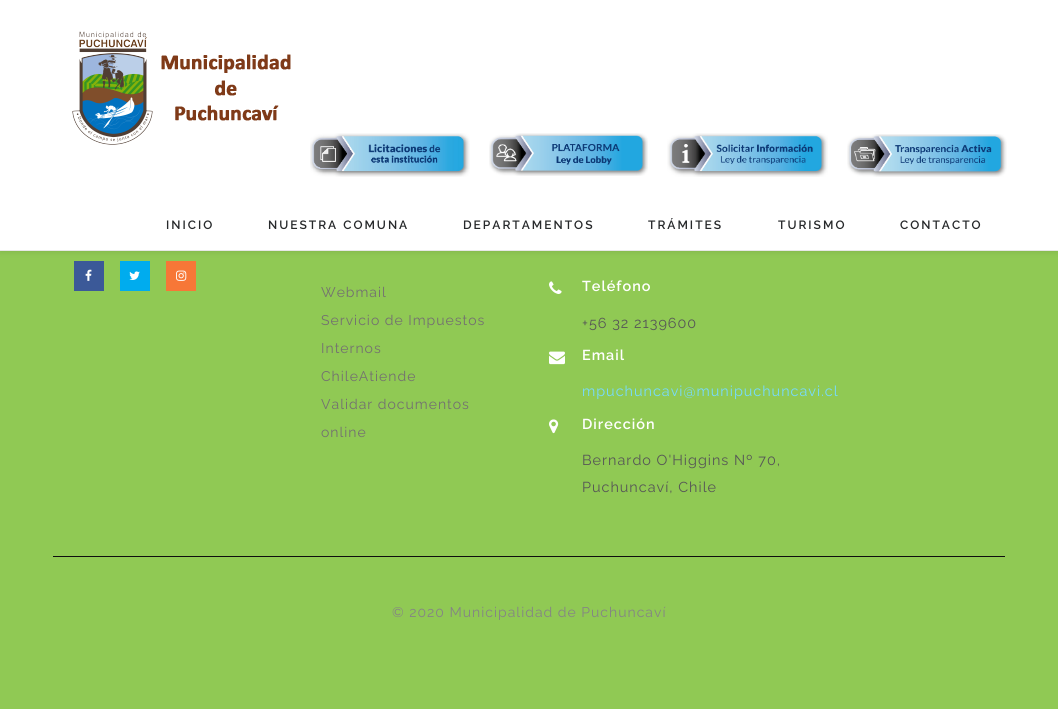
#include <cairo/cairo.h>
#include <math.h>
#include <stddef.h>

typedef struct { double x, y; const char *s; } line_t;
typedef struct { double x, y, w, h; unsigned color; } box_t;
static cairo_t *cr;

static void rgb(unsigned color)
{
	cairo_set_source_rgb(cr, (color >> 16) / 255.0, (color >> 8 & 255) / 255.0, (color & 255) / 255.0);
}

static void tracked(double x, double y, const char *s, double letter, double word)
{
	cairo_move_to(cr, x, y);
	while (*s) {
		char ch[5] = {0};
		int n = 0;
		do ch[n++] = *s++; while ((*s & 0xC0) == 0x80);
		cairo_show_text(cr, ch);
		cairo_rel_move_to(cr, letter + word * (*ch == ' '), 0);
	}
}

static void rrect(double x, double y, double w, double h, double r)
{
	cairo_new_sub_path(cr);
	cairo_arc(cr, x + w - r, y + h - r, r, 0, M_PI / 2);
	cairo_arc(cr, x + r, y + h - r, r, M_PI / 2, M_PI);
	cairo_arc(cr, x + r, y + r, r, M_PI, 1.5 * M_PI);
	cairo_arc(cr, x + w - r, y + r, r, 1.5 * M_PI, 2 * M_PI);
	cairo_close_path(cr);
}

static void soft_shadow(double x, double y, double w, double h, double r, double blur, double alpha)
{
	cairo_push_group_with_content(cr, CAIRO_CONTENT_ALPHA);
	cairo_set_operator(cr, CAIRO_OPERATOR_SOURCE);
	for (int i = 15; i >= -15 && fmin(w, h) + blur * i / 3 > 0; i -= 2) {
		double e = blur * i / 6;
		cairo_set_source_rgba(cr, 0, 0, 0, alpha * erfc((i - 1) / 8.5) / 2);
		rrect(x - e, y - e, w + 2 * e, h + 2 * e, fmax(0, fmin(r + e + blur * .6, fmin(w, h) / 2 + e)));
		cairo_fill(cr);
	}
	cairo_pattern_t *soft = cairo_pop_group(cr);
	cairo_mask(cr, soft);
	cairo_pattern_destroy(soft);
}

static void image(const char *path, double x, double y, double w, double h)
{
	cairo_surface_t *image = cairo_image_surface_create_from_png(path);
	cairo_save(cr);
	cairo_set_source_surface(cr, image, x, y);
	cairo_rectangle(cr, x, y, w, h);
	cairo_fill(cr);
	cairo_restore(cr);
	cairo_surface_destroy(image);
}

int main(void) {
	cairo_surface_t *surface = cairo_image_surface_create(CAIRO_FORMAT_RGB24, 1058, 709);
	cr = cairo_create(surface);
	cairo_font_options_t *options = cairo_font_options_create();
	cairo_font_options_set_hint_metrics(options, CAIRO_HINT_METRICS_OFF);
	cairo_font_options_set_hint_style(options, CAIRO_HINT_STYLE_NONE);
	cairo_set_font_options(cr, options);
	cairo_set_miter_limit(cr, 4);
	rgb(0x90c954);
	cairo_paint(cr);
	{
		static const box_t items[] = {
			{74, 261, 30, 30, 0x3b5998},
			{120, 261, 30, 30, 0x00acee},
			{166, 261, 30, 30, 0xf77737},
		};
		for (size_t i = 0; i < sizeof items / sizeof *items; i++) {
			rgb(items[i].color);
			cairo_rectangle(cr, items[i].x, items[i].y, items[i].w, items[i].h);
			cairo_fill(cr);
		}
	}
	rgb(0x000000);
	soft_shadow(0, 1, 1058, 251, 0, 3, 0.1);
	rgb(0xffffff);
	cairo_rectangle(cr, 0, 0, 1058, 250);
	cairo_fill(cr);
	rgb(0xe7e7e7);
	cairo_rectangle(cr, 0, 250, 1058, 1);
	cairo_fill(cr);
	image("img/1.png", 72, 31, 219, 114);
	image("img/2.png", 310, 133, 160, 44);
	image("img/3.png", 489, 133, 159, 43);
	image("img/4.png", 667, 133, 161, 44);
	image("img/5.png", 847, 134, 160, 43);
	image("img/6.png", 85, 269, 7, 12);
	image("img/7.png", 129, 271, 11, 9);
	image("img/8.png", 176, 270, 11, 11);
	image("img/9.png", 549, 281, 13, 13);
	image("img/10.png", 549, 351, 16, 14);
	image("img/11.png", 549, 419, 10, 15);
	rgb(0x0e0e0e);
	cairo_rectangle(cr, 53, 556, 952, 1);
	cairo_fill(cr);
	cairo_select_font_face(cr, "Raleway SemiBold", CAIRO_FONT_SLANT_NORMAL, CAIRO_FONT_WEIGHT_NORMAL);
	cairo_set_font_size(cr, 12);
	rgb(0x27292b);
	{
		static const line_t items[] = {
			{166, 229, "INICIO"},
			{268, 229, "NUESTRA COMUNA"},
			{463, 229, "DEPARTAMENTOS"},
			{648, 229, "TRÁMITES"},
			{778, 229, "TURISMO"},
			{900, 229, "CONTACTO"},
		};
		for (size_t i = 0; i < sizeof items / sizeof *items; i++) {
			tracked(items[i].x, items[i].y, items[i].s, 2, 0);
		}
	}
	cairo_select_font_face(cr, "Raleway", CAIRO_FONT_SLANT_NORMAL, CAIRO_FONT_WEIGHT_NORMAL);
	cairo_set_font_size(cr, 14);
	rgb(0x737070);
	{
		static const line_t items[] = {
			{321, 297, "Webmail"},
			{321, 325, "Servicio de Impuestos"},
			{321, 353, "Internos"},
			{321, 381, "ChileAtiende"},
			{321, 409, "Validar documentos"},
			{321, 437, "online"},
		};
		for (size_t i = 0; i < sizeof items / sizeof *items; i++) {
			tracked(items[i].x, items[i].y, items[i].s, 1, 0);
		}
	}
	cairo_select_font_face(cr, "Raleway SemiBold", CAIRO_FONT_SLANT_NORMAL, CAIRO_FONT_WEIGHT_NORMAL);
	cairo_set_font_size(cr, 14.4);
	rgb(0xffffff);
	tracked(582, 291, "Teléfono", 1, 0);
	cairo_select_font_face(cr, "Raleway", CAIRO_FONT_SLANT_NORMAL, CAIRO_FONT_WEIGHT_NORMAL);
	rgb(0x565656);
	tracked(582, 328, "+56 32 2139600", 1, 0);
	cairo_select_font_face(cr, "Raleway SemiBold", CAIRO_FONT_SLANT_NORMAL, CAIRO_FONT_WEIGHT_NORMAL);
	rgb(0xffffff);
	tracked(582, 360, "Email", 1, 0);
	cairo_select_font_face(cr, "Raleway", CAIRO_FONT_SLANT_NORMAL, CAIRO_FONT_WEIGHT_NORMAL);
	rgb(0x76daff);
	tracked(582, 396, "mpuchuncavi@munipuchuncavi.cl", 1, 0);
	cairo_select_font_face(cr, "Raleway SemiBold", CAIRO_FONT_SLANT_NORMAL, CAIRO_FONT_WEIGHT_NORMAL);
	rgb(0xffffff);
	tracked(582, 429, "Dirección", 1, 0);
	cairo_select_font_face(cr, "Raleway", CAIRO_FONT_SLANT_NORMAL, CAIRO_FONT_WEIGHT_NORMAL);
	rgb(0x565656);
	tracked(582, 465, "Bernardo O'Higgins Nº 70,", 1, 0);
	tracked(582, 492, "Puchuncaví, Chile", 1, 0);
	cairo_set_font_size(cr, 14);
	rgb(0x848484);
	tracked(392, 617, "© 2020 Municipalidad de Puchuncaví", 1, 0);
	cairo_surface_write_to_png(surface, "page.png");
	cairo_font_options_destroy(options);
	cairo_destroy(cr);
	cairo_surface_destroy(surface);
	return 0;
}
